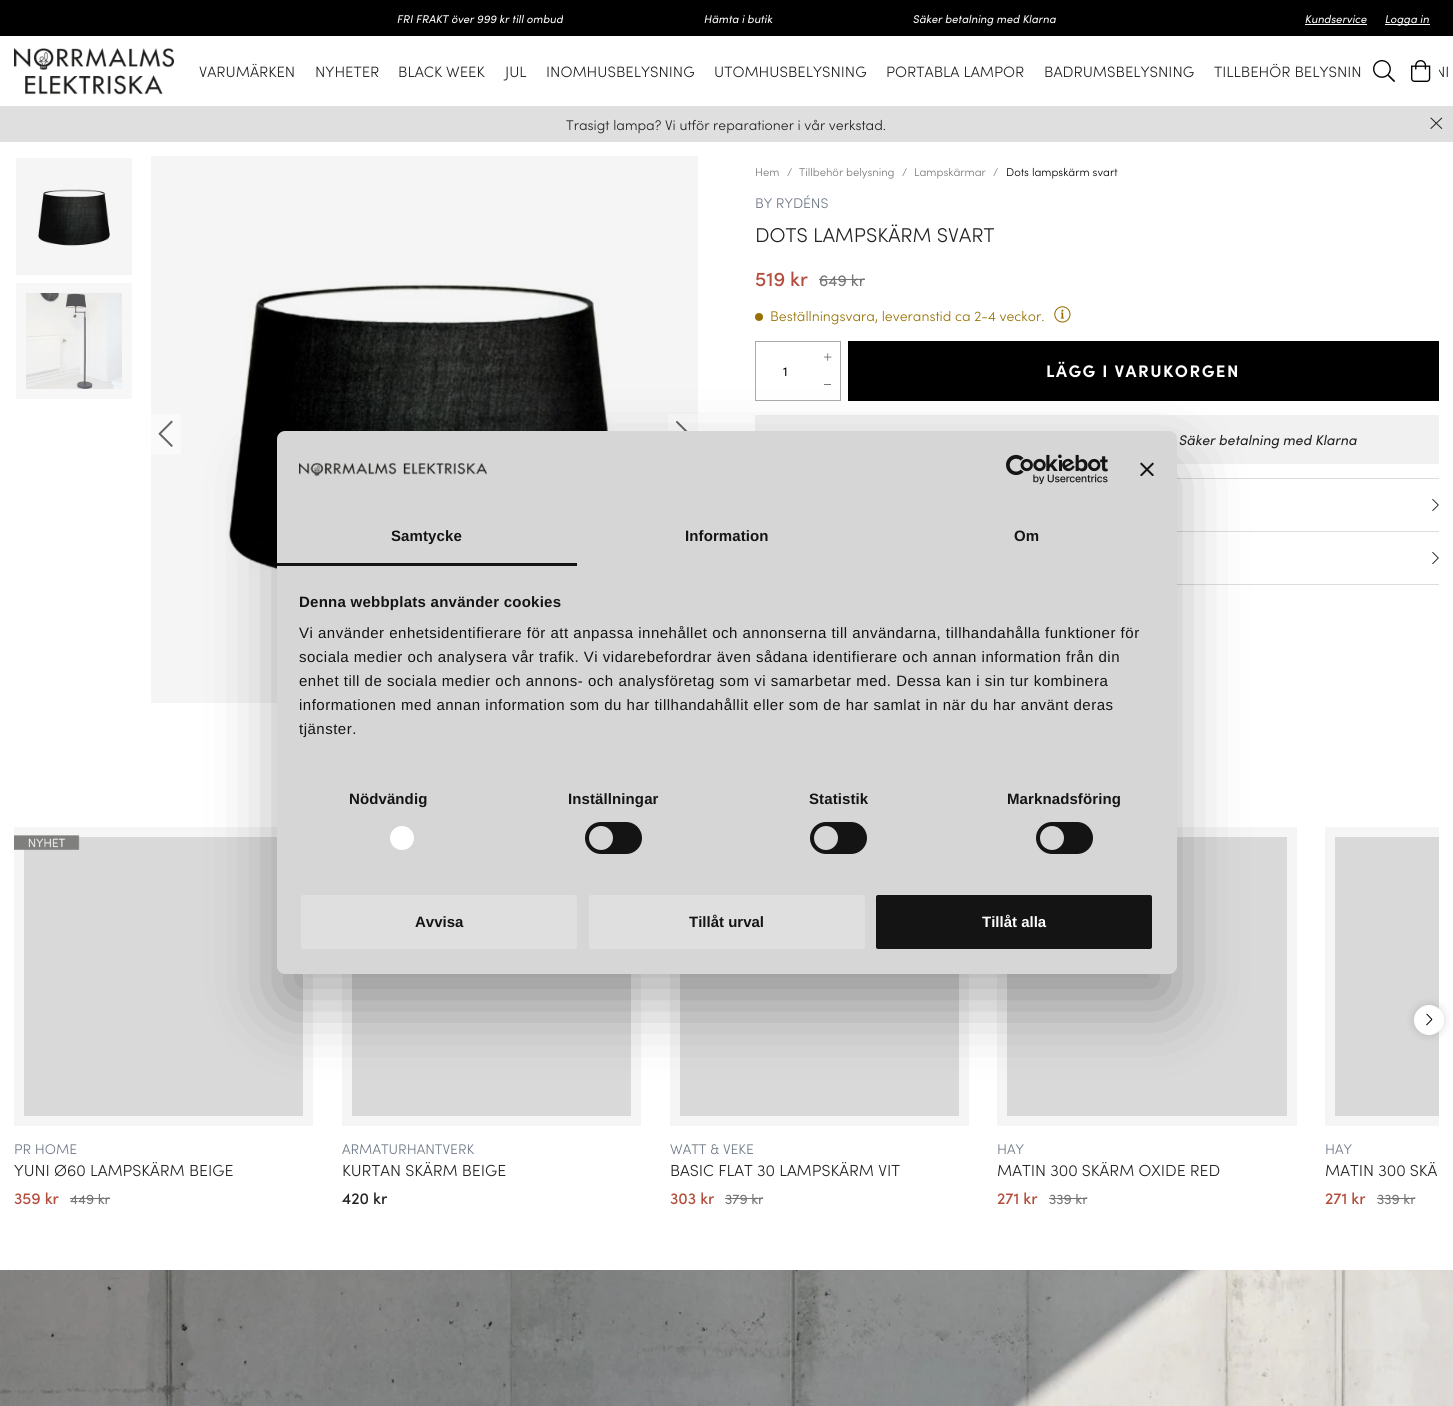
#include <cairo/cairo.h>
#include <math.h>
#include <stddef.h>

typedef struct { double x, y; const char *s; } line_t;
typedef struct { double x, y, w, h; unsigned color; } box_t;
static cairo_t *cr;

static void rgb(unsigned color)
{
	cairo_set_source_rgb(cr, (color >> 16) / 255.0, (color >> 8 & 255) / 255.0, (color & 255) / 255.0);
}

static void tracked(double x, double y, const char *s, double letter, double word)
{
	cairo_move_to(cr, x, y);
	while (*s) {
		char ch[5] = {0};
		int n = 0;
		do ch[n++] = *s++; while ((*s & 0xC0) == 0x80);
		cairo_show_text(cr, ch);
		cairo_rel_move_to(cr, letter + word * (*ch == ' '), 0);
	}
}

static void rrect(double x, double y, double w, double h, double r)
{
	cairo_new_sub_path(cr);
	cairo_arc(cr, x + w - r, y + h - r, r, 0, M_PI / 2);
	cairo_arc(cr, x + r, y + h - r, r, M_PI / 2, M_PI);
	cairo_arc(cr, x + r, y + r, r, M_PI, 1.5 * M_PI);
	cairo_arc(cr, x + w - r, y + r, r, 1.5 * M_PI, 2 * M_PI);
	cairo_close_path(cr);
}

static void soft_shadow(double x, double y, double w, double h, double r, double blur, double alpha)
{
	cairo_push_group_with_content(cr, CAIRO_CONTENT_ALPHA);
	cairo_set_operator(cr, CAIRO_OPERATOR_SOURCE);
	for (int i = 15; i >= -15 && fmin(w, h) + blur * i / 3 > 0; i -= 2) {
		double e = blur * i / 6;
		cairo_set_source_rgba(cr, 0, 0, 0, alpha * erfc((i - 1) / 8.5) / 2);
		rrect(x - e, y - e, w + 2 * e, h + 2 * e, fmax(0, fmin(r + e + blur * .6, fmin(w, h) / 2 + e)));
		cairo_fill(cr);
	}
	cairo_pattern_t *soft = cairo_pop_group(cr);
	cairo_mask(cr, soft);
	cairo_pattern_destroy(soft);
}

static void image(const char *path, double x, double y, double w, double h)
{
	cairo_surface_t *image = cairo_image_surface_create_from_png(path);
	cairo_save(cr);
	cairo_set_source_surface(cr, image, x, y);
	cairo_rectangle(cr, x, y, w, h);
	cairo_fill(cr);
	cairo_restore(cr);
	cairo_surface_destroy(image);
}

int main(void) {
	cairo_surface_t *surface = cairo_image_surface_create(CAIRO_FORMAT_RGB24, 1453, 1406);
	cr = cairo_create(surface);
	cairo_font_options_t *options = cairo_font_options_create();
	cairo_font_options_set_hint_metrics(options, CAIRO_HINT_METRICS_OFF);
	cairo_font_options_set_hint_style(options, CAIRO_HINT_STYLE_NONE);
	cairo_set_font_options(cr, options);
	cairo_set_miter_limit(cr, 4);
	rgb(0xffffff);
	cairo_paint(cr);
	{
		static const box_t items[] = {
			{1325, 827, 114, 299, 0xf5f5f5},
			{997, 827, 300, 299, 0xf5f5f5},
			{670, 974, 299, 152, 0xf5f5f5},
			{342, 974, 299, 152, 0xf5f5f5},
			{14, 827, 299, 299, 0xf5f5f5},
			{151, 156, 547, 547, 0xf5f5f5},
			{16, 283, 116, 116, 0xf7f7f7},
			{16, 158, 116, 117, 0xf5f5f5},
			{0, 0, 1453, 36, 0x000000},
			{1305, 24, 62, 1, 0xffffff},
			{1385, 24, 45, 1, 0xffffff},
		};
		for (size_t i = 0; i < sizeof items / sizeof *items; i++) {
			rgb(items[i].color);
			cairo_rectangle(cr, items[i].x, items[i].y, items[i].w, items[i].h);
			cairo_fill(cr);
		}
	}
	image("img/1.png", 14, 48, 160, 47);
	image("img/2.png", 1373, 60, 22, 22);
	image("img/3.png", 1411, 60, 20, 22);
	rgb(0xdfdfdf);
	cairo_rectangle(cr, 0, 106, 1453, 36);
	cairo_fill(cr);
	image("img/4.png", 1430, 117, 13, 12);
	image("img/5.png", 38, 189, 72, 57);
	image("img/6.png", 26, 293, 96, 96);
	rgb(0xfafafa);
	cairo_rectangle(cr, 151, 414, 30, 40);
	cairo_fill(cr);
	image("img/7.png", 158, 420, 15, 27);
	image("img/8.png", 228, 281, 394, 306);
	cairo_rectangle(cr, 668, 414, 30, 17);
	cairo_fill(cr);
	image("img/9.png", 676, 421, 12, 10);
	rgb(0x757575);
	cairo_rectangle(cr, 819, 279, 46, 1);
	cairo_fill(cr);
	rgb(0x967100);
	cairo_arc(cr, 759, 317, 4, 0, 2 * M_PI);
	cairo_fill(cr);
	image("img/10.png", 1054, 306, 17, 17);
	cairo_rectangle(cr, 755.5, 341.5, 85, 59);
	rgb(0xaaaaaa);
	cairo_set_line_width(cr, 1);
	cairo_stroke(cr);
	image("img/11.png", 824, 353, 8, 8);
	{
		static const box_t items[] = {
			{824, 384, 7, 1, 0x777777},
			{848, 341, 591, 60, 0x000000},
			{755, 415, 684, 49, 0xf1f1f1},
			{1177, 478, 262, 1, 0xdddddd},
		};
		for (size_t i = 0; i < sizeof items / sizeof *items; i++) {
			rgb(items[i].color);
			cairo_rectangle(cr, items[i].x, items[i].y, items[i].w, items[i].h);
			cairo_fill(cr);
		}
	}
	image("img/12.png", 1432, 498, 7, 13);
	cairo_rectangle(cr, 1177, 531, 262, 1);
	cairo_fill(cr);
	cairo_rectangle(cr, 1177, 584, 262, 1);
	cairo_fill(cr);
	image("img/12.png", 1432, 551, 7, 13);
	rgb(0xd9d9d9);
	cairo_rectangle(cr, 1335, 837, 104, 279);
	cairo_fill(cr);
	rgb(0x000000);
	soft_shadow(1414, 1005, 30, 30, 15, 4.5, 0.15);
	rgb(0xffffff);
	cairo_arc(cr, 1429, 1020, 15, 0, 2 * M_PI);
	cairo_fill(cr);
	image("img/13.png", 1426, 1013, 7, 13);
	rgb(0xd9d9d9);
	cairo_rectangle(cr, 24, 837, 279, 279);
	cairo_fill(cr);
	image("img/14.png", 14, 835, 66, 15);
	{
		static const box_t items[] = {
			{70, 1198, 40, 1, 0x757575},
			{352, 974, 279, 142, 0xd9d9d9},
			{680, 974, 279, 142, 0xd9d9d9},
			{725, 1198, 38, 1, 0x757575},
			{1007, 837, 280, 279, 0xd9d9d9},
			{1049, 1198, 38, 1, 0x757575},
			{1377, 1198, 38, 1, 0x757575},
		};
		for (size_t i = 0; i < sizeof items / sizeof *items; i++) {
			rgb(items[i].color);
			cairo_rectangle(cr, items[i].x, items[i].y, items[i].w, items[i].h);
			cairo_fill(cr);
		}
	}
	image("img/15.png", 0, 1270, 1453, 136);
	rgb(0x000000);
	soft_shadow(277, 463, 900, 543, 8, 34, 0.3);
	rgb(0xd6d6d6);
	rrect(277, 431, 900, 543, 8);
	cairo_fill(cr);
	image("img/16.png", 299, 462, 188, 15);
	image("img/17.png", 1006, 454, 102, 30);
	image("img/18.png", 1140, 462, 14, 14);
	rgb(0x141414);
	cairo_rectangle(cr, 277, 563, 300, 3);
	cairo_fill(cr);
	rgb(0xffffff);
	cairo_arc(cr, 402, 838, 12, 0, 2 * M_PI);
	cairo_fill(cr);
	rgb(0x141414);
	rrect(585, 822, 57, 32, 16);
	cairo_fill(cr);
	rgb(0xd6d6d6);
	cairo_arc(cr, 601, 838, 12, 0, 2 * M_PI);
	cairo_fill(cr);
	rgb(0x141414);
	rrect(810, 822, 57, 32, 16);
	cairo_fill(cr);
	rgb(0xd6d6d6);
	cairo_arc(cr, 826, 838, 12, 0, 2 * M_PI);
	cairo_fill(cr);
	rgb(0x141414);
	rrect(1036, 822, 57, 32, 16);
	cairo_fill(cr);
	rgb(0xd6d6d6);
	cairo_arc(cr, 1052, 838, 12, 0, 2 * M_PI);
	cairo_fill(cr);
	rgb(0xdfdfdf);
	rrect(300, 894, 278, 56, 3);
	cairo_fill_preserve(cr);
	rgb(0xd6d6d6);
	cairo_set_line_width(cr, 2);
	cairo_stroke(cr);
	rgb(0xdfdfdf);
	rrect(588, 894, 278, 56, 3);
	cairo_fill_preserve(cr);
	rgb(0xd6d6d6);
	cairo_stroke(cr);
	rgb(0x141414);
	rrect(875, 894, 278, 56, 3);
	cairo_fill_preserve(cr);
	rgb(0xd6d6d6);
	cairo_stroke(cr);
	cairo_select_font_face(cr, "Sofia", CAIRO_FONT_SLANT_ITALIC, CAIRO_FONT_WEIGHT_NORMAL);
	cairo_set_font_size(cr, 11.25);
	rgb(0xffffff);
	{
		static const line_t items[] = {
			{397, 23, "FRI FRAKT över 999 kr till ombud"},
			{704, 23, "Hämta i butik"},
			{913, 23, "Säker betalning med Klarna"},
			{1305, 23, "Kundservice"},
			{1385, 23, "Logga in"},
		};
		for (size_t i = 0; i < sizeof items / sizeof *items; i++) {
			cairo_move_to(cr, items[i].x, items[i].y);
			cairo_show_text(cr, items[i].s);
		}
	}
	cairo_select_font_face(cr, "Sofia Light", CAIRO_FONT_SLANT_NORMAL, CAIRO_FONT_WEIGHT_NORMAL);
	cairo_set_font_size(cr, 15);
	rgb(0x222222);
	{
		static const line_t items[] = {
			{199, 77, "VARUMÄRKEN"},
			{315, 77, "NYHETER"},
			{398, 77, "BLACK WEEK"},
			{505, 77, "JUL"},
			{546, 77, "INOMHUSBELYSNING"},
			{714, 77, "UTOMHUSBELYSNING"},
			{886, 77, "PORTABLA LAMPOR"},
			{1044, 77, "BADRUMSBELYSNING"},
			{1214, 77, "TILLBEHÖR BELYSNIN"},
			{1435, 77, "NI"},
		};
		for (size_t i = 0; i < sizeof items / sizeof *items; i++) {
			cairo_move_to(cr, items[i].x, items[i].y);
			cairo_show_text(cr, items[i].s);
		}
	}
	rgb(0xffffff);
	cairo_rectangle(cr, 1436, 66, 3, 11);
	cairo_fill(cr);
	cairo_set_font_size(cr, 14);
	rgb(0x222222);
	cairo_move_to(cr, 566, 130);
	cairo_show_text(cr, "Trasigt lampa? Vi utför reparationer i vår verkstad.");
	cairo_set_font_size(cr, 11.25);
	rgb(0x757575);
	{
		static const line_t items[] = {
			{755, 176, "Hem"},
			{787, 176, "/"},
			{799, 176, "Tillbehör belysning"},
			{902, 176, "/"},
			{914, 176, "Lampskärmar"},
			{993, 176, "/"},
		};
		for (size_t i = 0; i < sizeof items / sizeof *items; i++) {
			cairo_move_to(cr, items[i].x, items[i].y);
			cairo_show_text(cr, items[i].s);
		}
	}
	rgb(0x000000);
	cairo_move_to(cr, 1006, 176);
	cairo_show_text(cr, "Dots lampskärm svart");
	cairo_set_font_size(cr, 14);
	rgb(0x6b7684);
	cairo_move_to(cr, 755, 208);
	cairo_show_text(cr, "BY RYDÉNS");
	cairo_set_font_size(cr, 20);
	rgb(0x222222);
	cairo_move_to(cr, 755, 242);
	cairo_show_text(cr, "DOTS LAMPSKÄRM SVART");
	cairo_select_font_face(cr, "Sofia Medium", CAIRO_FONT_SLANT_NORMAL, CAIRO_FONT_WEIGHT_NORMAL);
	rgb(0xb44e3c);
	cairo_move_to(cr, 755, 286);
	cairo_show_text(cr, "519 kr");
	cairo_select_font_face(cr, "Sofia", CAIRO_FONT_SLANT_NORMAL, CAIRO_FONT_WEIGHT_NORMAL);
	cairo_set_font_size(cr, 16);
	rgb(0x757575);
	cairo_move_to(cr, 819, 286);
	cairo_show_text(cr, "649 kr");
	cairo_select_font_face(cr, "Sofia Light", CAIRO_FONT_SLANT_NORMAL, CAIRO_FONT_WEIGHT_NORMAL);
	cairo_set_font_size(cr, 14);
	rgb(0x967100);
	cairo_move_to(cr, 770, 321);
	cairo_show_text(cr, "Beställningsvara, leveranstid ca 2-4 veckor.");
	cairo_select_font_face(cr, "Sofia", CAIRO_FONT_SLANT_NORMAL, CAIRO_FONT_WEIGHT_NORMAL);
	cairo_set_font_size(cr, 13);
	rgb(0x000000);
	cairo_move_to(cr, 783, 376);
	cairo_show_text(cr, "1");
	cairo_select_font_face(cr, "Sofia", CAIRO_FONT_SLANT_NORMAL, CAIRO_FONT_WEIGHT_BOLD);
	cairo_set_font_size(cr, 16.75);
	rgb(0xffffff);
	tracked(1046, 377, "LÄGG I VARUKORGEN", 1.5, 0);
	cairo_select_font_face(cr, "Sofia", CAIRO_FONT_SLANT_ITALIC, CAIRO_FONT_WEIGHT_NORMAL);
	cairo_set_font_size(cr, 14);
	rgb(0x222222);
	cairo_move_to(cr, 1179, 445);
	cairo_show_text(cr, "Säker betalning med Klarna");
	cairo_select_font_face(cr, "Sofia Light", CAIRO_FONT_SLANT_NORMAL, CAIRO_FONT_WEIGHT_NORMAL);
	rgb(0x6b7684);
	cairo_move_to(cr, 14, 1154);
	cairo_show_text(cr, "PR HOME");
	cairo_set_font_size(cr, 16);
	rgb(0x222222);
	cairo_move_to(cr, 14, 1176);
	cairo_show_text(cr, "YUNI Ø60 LAMPSKÄRM BEIGE");
	cairo_select_font_face(cr, "Sofia Medium", CAIRO_FONT_SLANT_NORMAL, CAIRO_FONT_WEIGHT_NORMAL);
	rgb(0xb44e3c);
	cairo_move_to(cr, 14, 1204);
	cairo_show_text(cr, "359 kr");
	cairo_select_font_face(cr, "Sofia", CAIRO_FONT_SLANT_NORMAL, CAIRO_FONT_WEIGHT_NORMAL);
	cairo_set_font_size(cr, 14);
	rgb(0x757575);
	cairo_move_to(cr, 70, 1204);
	cairo_show_text(cr, "449 kr");
	cairo_select_font_face(cr, "Sofia Light", CAIRO_FONT_SLANT_NORMAL, CAIRO_FONT_WEIGHT_NORMAL);
	rgb(0x6b7684);
	cairo_move_to(cr, 342, 1154);
	cairo_show_text(cr, "ARMATURHANTVERK");
	cairo_set_font_size(cr, 16);
	rgb(0x222222);
	cairo_move_to(cr, 342, 1176);
	cairo_show_text(cr, "KURTAN SKÄRM BEIGE");
	cairo_select_font_face(cr, "Sofia Medium", CAIRO_FONT_SLANT_NORMAL, CAIRO_FONT_WEIGHT_NORMAL);
	cairo_move_to(cr, 342, 1204);
	cairo_show_text(cr, "420 kr");
	cairo_select_font_face(cr, "Sofia Light", CAIRO_FONT_SLANT_NORMAL, CAIRO_FONT_WEIGHT_NORMAL);
	cairo_set_font_size(cr, 14);
	rgb(0x6b7684);
	cairo_move_to(cr, 670, 1154);
	cairo_show_text(cr, "WATT & VEKE");
	cairo_set_font_size(cr, 16);
	rgb(0x222222);
	cairo_move_to(cr, 670, 1176);
	cairo_show_text(cr, "BASIC FLAT 30 LAMPSKÄRM VIT");
	cairo_select_font_face(cr, "Sofia Medium", CAIRO_FONT_SLANT_NORMAL, CAIRO_FONT_WEIGHT_NORMAL);
	rgb(0xb44e3c);
	cairo_move_to(cr, 670, 1204);
	cairo_show_text(cr, "303 kr");
	cairo_select_font_face(cr, "Sofia", CAIRO_FONT_SLANT_NORMAL, CAIRO_FONT_WEIGHT_NORMAL);
	cairo_set_font_size(cr, 14);
	rgb(0x757575);
	cairo_move_to(cr, 725, 1204);
	cairo_show_text(cr, "379 kr");
	cairo_select_font_face(cr, "Sofia Light", CAIRO_FONT_SLANT_NORMAL, CAIRO_FONT_WEIGHT_NORMAL);
	rgb(0x6b7684);
	cairo_move_to(cr, 997, 1154);
	cairo_show_text(cr, "HAY");
	cairo_set_font_size(cr, 16);
	rgb(0x222222);
	cairo_move_to(cr, 997, 1176);
	cairo_show_text(cr, "MATIN 300 SKÄRM OXIDE RED");
	cairo_select_font_face(cr, "Sofia Medium", CAIRO_FONT_SLANT_NORMAL, CAIRO_FONT_WEIGHT_NORMAL);
	rgb(0xb44e3c);
	cairo_move_to(cr, 997, 1204);
	cairo_show_text(cr, "271 kr");
	cairo_select_font_face(cr, "Sofia", CAIRO_FONT_SLANT_NORMAL, CAIRO_FONT_WEIGHT_NORMAL);
	cairo_set_font_size(cr, 14);
	rgb(0x757575);
	cairo_move_to(cr, 1049, 1204);
	cairo_show_text(cr, "339 kr");
	cairo_select_font_face(cr, "Sofia Light", CAIRO_FONT_SLANT_NORMAL, CAIRO_FONT_WEIGHT_NORMAL);
	rgb(0x6b7684);
	cairo_move_to(cr, 1325, 1154);
	cairo_show_text(cr, "HAY");
	cairo_set_font_size(cr, 16);
	rgb(0x222222);
	cairo_move_to(cr, 1325, 1176);
	cairo_show_text(cr, "MATIN 300 SKÄ");
	cairo_select_font_face(cr, "Sofia Medium", CAIRO_FONT_SLANT_NORMAL, CAIRO_FONT_WEIGHT_NORMAL);
	rgb(0xb44e3c);
	cairo_move_to(cr, 1325, 1204);
	cairo_show_text(cr, "271 kr");
	cairo_select_font_face(cr, "Sofia", CAIRO_FONT_SLANT_NORMAL, CAIRO_FONT_WEIGHT_NORMAL);
	cairo_set_font_size(cr, 14);
	rgb(0x757575);
	cairo_move_to(cr, 1377, 1204);
	cairo_show_text(cr, "339 kr");
	cairo_select_font_face(cr, "Liberation Sans", CAIRO_FONT_SLANT_NORMAL, CAIRO_FONT_WEIGHT_BOLD);
	cairo_set_font_size(cr, 15);
	rgb(0x141414);
	{
		static const line_t items[] = {
			{391, 541, "Samtycke"},
			{685, 541, "Information"},
			{1014, 541, "Om"},
		};
		for (size_t i = 0; i < sizeof items / sizeof *items; i++) {
			tracked(items[i].x, items[i].y, items[i].s, 0.1, 0);
		}
	}
	tracked(299, 607, "Denna webbplats använder cookies", 0.25, 0);
	cairo_select_font_face(cr, "Liberation Sans", CAIRO_FONT_SLANT_NORMAL, CAIRO_FONT_WEIGHT_NORMAL);
	{
		static const line_t items[] = {
			{299, 638, "Vi använder enhetsidentifierare för att anpassa innehållet och annonserna till användarna, tillhandahålla funktioner för"},
			{299, 662, "sociala medier och analysera vår trafik. Vi vidarebefordrar även sådana identifierare och annan information från din"},
			{299, 686, "enhet till de sociala medier och annons- och analysföretag som vi samarbetar med. Dessa kan i sin tur kombinera"},
			{299, 710, "informationen med annan information som du har tillhandahållit eller som de har samlat in när du har använt deras"},
			{299, 734, "tjänster."},
		};
		for (size_t i = 0; i < sizeof items / sizeof *items; i++) {
			tracked(items[i].x, items[i].y, items[i].s, 0.5, 0);
		}
	}
	cairo_select_font_face(cr, "Liberation Sans", CAIRO_FONT_SLANT_NORMAL, CAIRO_FONT_WEIGHT_BOLD);
	{
		static const line_t items[] = {
			{349, 804, "Nödvändig"},
			{568, 804, "Inställningar"},
			{809, 804, "Statistik"},
			{1007, 804, "Marknadsföring"},
		};
		for (size_t i = 0; i < sizeof items / sizeof *items; i++) {
			tracked(items[i].x, items[i].y, items[i].s, 0.1, 0);
		}
	}
	cairo_move_to(cr, 415, 927);
	cairo_show_text(cr, "Avvisa");
	cairo_move_to(cr, 689, 927);
	cairo_show_text(cr, "Tillåt urval");
	rgb(0xffffff);
	cairo_move_to(cr, 982, 927);
	cairo_show_text(cr, "Tillåt alla");
	cairo_surface_write_to_png(surface, "page.png");
	cairo_font_options_destroy(options);
	cairo_destroy(cr);
	cairo_surface_destroy(surface);
	return 0;
}
